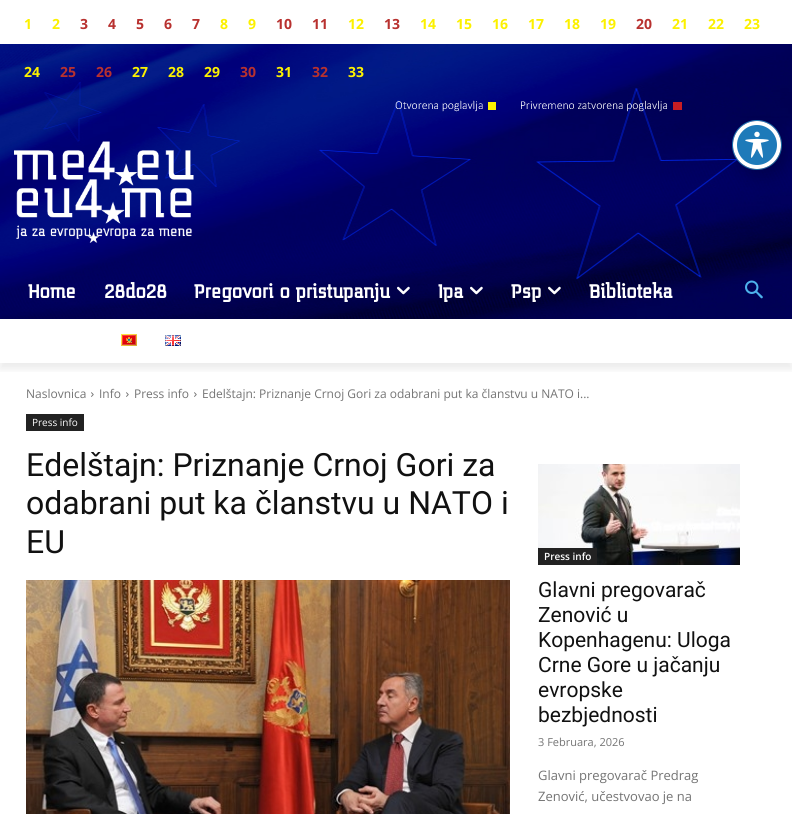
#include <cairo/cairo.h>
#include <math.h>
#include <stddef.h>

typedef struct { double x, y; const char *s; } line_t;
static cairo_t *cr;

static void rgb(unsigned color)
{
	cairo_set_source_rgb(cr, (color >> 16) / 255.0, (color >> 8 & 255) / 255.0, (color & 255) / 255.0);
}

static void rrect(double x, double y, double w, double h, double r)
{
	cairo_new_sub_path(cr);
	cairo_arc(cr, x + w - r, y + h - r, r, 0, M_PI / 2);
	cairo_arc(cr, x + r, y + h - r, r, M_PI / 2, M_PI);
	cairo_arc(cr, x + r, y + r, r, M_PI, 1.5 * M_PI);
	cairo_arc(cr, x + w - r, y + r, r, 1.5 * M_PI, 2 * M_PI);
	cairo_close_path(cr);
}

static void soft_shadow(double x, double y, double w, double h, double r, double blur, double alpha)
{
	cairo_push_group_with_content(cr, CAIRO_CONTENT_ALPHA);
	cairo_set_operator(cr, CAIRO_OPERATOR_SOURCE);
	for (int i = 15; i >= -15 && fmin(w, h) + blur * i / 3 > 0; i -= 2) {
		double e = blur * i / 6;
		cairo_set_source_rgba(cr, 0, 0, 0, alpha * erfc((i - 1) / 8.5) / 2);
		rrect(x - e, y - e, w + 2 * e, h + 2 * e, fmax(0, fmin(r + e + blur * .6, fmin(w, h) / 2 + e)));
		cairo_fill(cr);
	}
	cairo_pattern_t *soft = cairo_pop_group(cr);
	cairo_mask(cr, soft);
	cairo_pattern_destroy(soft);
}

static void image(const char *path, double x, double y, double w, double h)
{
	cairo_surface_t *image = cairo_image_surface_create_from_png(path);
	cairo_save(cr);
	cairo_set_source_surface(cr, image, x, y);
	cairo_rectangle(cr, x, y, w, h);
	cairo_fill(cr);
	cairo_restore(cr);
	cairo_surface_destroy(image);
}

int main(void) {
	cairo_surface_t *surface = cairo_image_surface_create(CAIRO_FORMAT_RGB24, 792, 814);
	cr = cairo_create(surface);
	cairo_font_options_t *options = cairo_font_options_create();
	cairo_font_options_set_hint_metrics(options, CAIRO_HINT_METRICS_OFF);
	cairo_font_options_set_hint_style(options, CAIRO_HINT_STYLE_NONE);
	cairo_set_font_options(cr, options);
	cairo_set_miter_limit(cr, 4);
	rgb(0xffffff);
	cairo_paint(cr);
	image("img/2.png", 0, 44, 792, 275);
	image("img/1.png", 395, 100, 287, 12);
	image("img/3.png", 14, 141, 180, 102);
	cairo_save(cr);
	cairo_rectangle(cr, 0, 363, 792, 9);
	cairo_clip(cr);
	rgb(0x000000);
	soft_shadow(0, 6, 792, 363, 0, 4, 0.08);
	cairo_restore(cr);
	image("img/4.png", 397, 286, 13, 9);
	image("img/5.png", 470, 286, 13, 9);
	image("img/6.png", 548, 286, 13, 9);
	image("img/7.png", 121, 334, 16, 12);
	image("img/8.png", 165, 335, 16, 11);
	image("img/9.png", 745, 280, 18, 19);
	image("img/10.png", 91, 392, 3, 5);
	image("img/10.png", 126, 392, 3, 5);
	image("img/10.png", 194, 392, 3, 5);
	rgb(0x222222);
	cairo_rectangle(cr, 26, 414, 58, 17);
	cairo_fill(cr);
	image("img/11.png", 26, 580, 484, 234);
	image("img/12.png", 538, 464, 202, 101);
	cairo_rectangle(cr, 538, 548, 59, 17);
	cairo_fill(cr);
	cairo_arc(cr, 757, 145, 24.5, 0, 2 * M_PI);
	rgb(0x1e7ab9);
	cairo_set_line_width(cr, 1);
	cairo_stroke(cr);
	rgb(0x000000);
	soft_shadow(739, 129, 48, 48, 24, 8, 0.2);
	rgb(0x1e7ab9);
	cairo_arc(cr, 757, 145, 22, 0, 2 * M_PI);
	cairo_fill_preserve(cr);
	rgb(0xffffff);
	cairo_set_line_width(cr, 4);
	cairo_stroke(cr);
	image("img/13.png", 745, 131, 24, 27);
	cairo_select_font_face(cr, "Open Sans", CAIRO_FONT_SLANT_NORMAL, CAIRO_FONT_WEIGHT_BOLD);
	cairo_set_font_size(cr, 14);
	rgb(0xfcf100);
	cairo_move_to(cr, 24, 29);
	cairo_show_text(cr, "1");
	cairo_move_to(cr, 52, 29);
	cairo_show_text(cr, "2");
	rgb(0xb8312f);
	{
		static const line_t items[] = {
			{80, 29, "3"},
			{108, 29, "4"},
			{136, 29, "5"},
			{164, 29, "6"},
			{192, 29, "7"},
		};
		for (size_t i = 0; i < sizeof items / sizeof *items; i++) {
			cairo_move_to(cr, items[i].x, items[i].y);
			cairo_show_text(cr, items[i].s);
		}
	}
	rgb(0xfcf100);
	cairo_move_to(cr, 220, 29);
	cairo_show_text(cr, "8");
	cairo_move_to(cr, 248, 29);
	cairo_show_text(cr, "9");
	rgb(0xb8312f);
	cairo_move_to(cr, 276, 29);
	cairo_show_text(cr, "10");
	cairo_move_to(cr, 312, 29);
	cairo_show_text(cr, "11");
	rgb(0xfcf100);
	cairo_move_to(cr, 348, 29);
	cairo_show_text(cr, "12");
	rgb(0xb8312f);
	cairo_move_to(cr, 384, 29);
	cairo_show_text(cr, "13");
	rgb(0xfcf100);
	{
		static const line_t items[] = {
			{420, 29, "14"},
			{456, 29, "15"},
			{492, 29, "16"},
			{528, 29, "17"},
			{564, 29, "18"},
			{600, 29, "19"},
		};
		for (size_t i = 0; i < sizeof items / sizeof *items; i++) {
			cairo_move_to(cr, items[i].x, items[i].y);
			cairo_show_text(cr, items[i].s);
		}
	}
	rgb(0xb8312f);
	cairo_move_to(cr, 636, 29);
	cairo_show_text(cr, "20");
	rgb(0xfcf100);
	{
		static const line_t items[] = {
			{672, 29, "21"},
			{708, 29, "22"},
			{744, 29, "23"},
			{24, 77, "24"},
		};
		for (size_t i = 0; i < sizeof items / sizeof *items; i++) {
			cairo_move_to(cr, items[i].x, items[i].y);
			cairo_show_text(cr, items[i].s);
		}
	}
	rgb(0xb8312f);
	cairo_move_to(cr, 60, 77);
	cairo_show_text(cr, "25");
	cairo_move_to(cr, 96, 77);
	cairo_show_text(cr, "26");
	rgb(0xfcf100);
	{
		static const line_t items[] = {
			{132, 77, "27"},
			{168, 77, "28"},
			{204, 77, "29"},
		};
		for (size_t i = 0; i < sizeof items / sizeof *items; i++) {
			cairo_move_to(cr, items[i].x, items[i].y);
			cairo_show_text(cr, items[i].s);
		}
	}
	rgb(0xb8312f);
	cairo_move_to(cr, 240, 77);
	cairo_show_text(cr, "30");
	rgb(0xfcf100);
	cairo_move_to(cr, 276, 77);
	cairo_show_text(cr, "31");
	rgb(0xb8312f);
	cairo_move_to(cr, 312, 77);
	cairo_show_text(cr, "32");
	rgb(0xfcf100);
	cairo_move_to(cr, 348, 77);
	cairo_show_text(cr, "33");
	cairo_select_font_face(cr, "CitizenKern", CAIRO_FONT_SLANT_NORMAL, CAIRO_FONT_WEIGHT_BOLD);
	cairo_set_font_size(cr, 22);
	rgb(0xffffff);
	{
		static const line_t items[] = {
			{28, 298, "Home"},
			{104, 298, "28do28"},
			{194, 298, "Pregovori o pristupanju"},
			{438, 298, "Ipa"},
			{511, 298, "Psp"},
			{589, 298, "Biblioteka"},
		};
		for (size_t i = 0; i < sizeof items / sizeof *items; i++) {
			cairo_move_to(cr, items[i].x, items[i].y);
			cairo_show_text(cr, items[i].s);
		}
	}
	cairo_select_font_face(cr, "Open Sans", CAIRO_FONT_SLANT_NORMAL, CAIRO_FONT_WEIGHT_NORMAL);
	cairo_set_font_size(cr, 12);
	rgb(0x747474);
	{
		static const line_t items[] = {
			{26, 398, "Naslovnica"},
			{99, 398, "Info"},
			{134, 398, "Press info"},
			{202, 398, "Edelštajn: Priznanje Crnoj Gori za odabrani put ka članstvu u NATO i..."},
		};
		for (size_t i = 0; i < sizeof items / sizeof *items; i++) {
			cairo_move_to(cr, items[i].x, items[i].y);
			cairo_show_text(cr, items[i].s);
		}
	}
	cairo_set_font_size(cr, 10);
	rgb(0xffffff);
	cairo_move_to(cr, 32, 426);
	cairo_show_text(cr, "Press info");
	cairo_select_font_face(cr, "Roboto", CAIRO_FONT_SLANT_NORMAL, CAIRO_FONT_WEIGHT_NORMAL);
	cairo_set_font_size(cr, 32);
	rgb(0x111111);
	{
		static const line_t items[] = {
			{26, 476, "Edelštajn: Priznanje Crnoj Gori za"},
			{26, 514, "odabrani put ka članstvu u NATO i"},
			{26, 553, "EU"},
		};
		for (size_t i = 0; i < sizeof items / sizeof *items; i++) {
			cairo_move_to(cr, items[i].x, items[i].y);
			cairo_show_text(cr, items[i].s);
		}
	}
	cairo_select_font_face(cr, "Open Sans SemiBold", CAIRO_FONT_SLANT_NORMAL, CAIRO_FONT_WEIGHT_NORMAL);
	cairo_set_font_size(cr, 10);
	rgb(0xffffff);
	cairo_move_to(cr, 544, 560);
	cairo_show_text(cr, "Press info");
	cairo_select_font_face(cr, "Roboto", CAIRO_FONT_SLANT_NORMAL, CAIRO_FONT_WEIGHT_NORMAL);
	cairo_set_font_size(cr, 21);
	rgb(0x111111);
	{
		static const line_t items[] = {
			{538, 597, "Glavni pregovarač"},
			{538, 622, "Zenović u"},
			{538, 647, "Kopenhagenu: Uloga"},
			{538, 672, "Crne Gore u jačanju"},
			{538, 697, "evropske"},
			{538, 722, "bezbjednosti"},
		};
		for (size_t i = 0; i < sizeof items / sizeof *items; i++) {
			cairo_move_to(cr, items[i].x, items[i].y);
			cairo_show_text(cr, items[i].s);
		}
	}
	cairo_select_font_face(cr, "Open Sans", CAIRO_FONT_SLANT_NORMAL, CAIRO_FONT_WEIGHT_NORMAL);
	cairo_set_font_size(cr, 11);
	rgb(0x747474);
	cairo_move_to(cr, 538, 746);
	cairo_show_text(cr, "3 Februara, 2026");
	cairo_set_font_size(cr, 13);
	cairo_move_to(cr, 538, 780);
	cairo_show_text(cr, "Glavni pregovarač Predrag");
	cairo_move_to(cr, 538, 801);
	cairo_show_text(cr, "Zenović, učestvovao je na");
	cairo_surface_write_to_png(surface, "page.png");
	cairo_font_options_destroy(options);
	cairo_destroy(cr);
	cairo_surface_destroy(surface);
	return 0;
}
